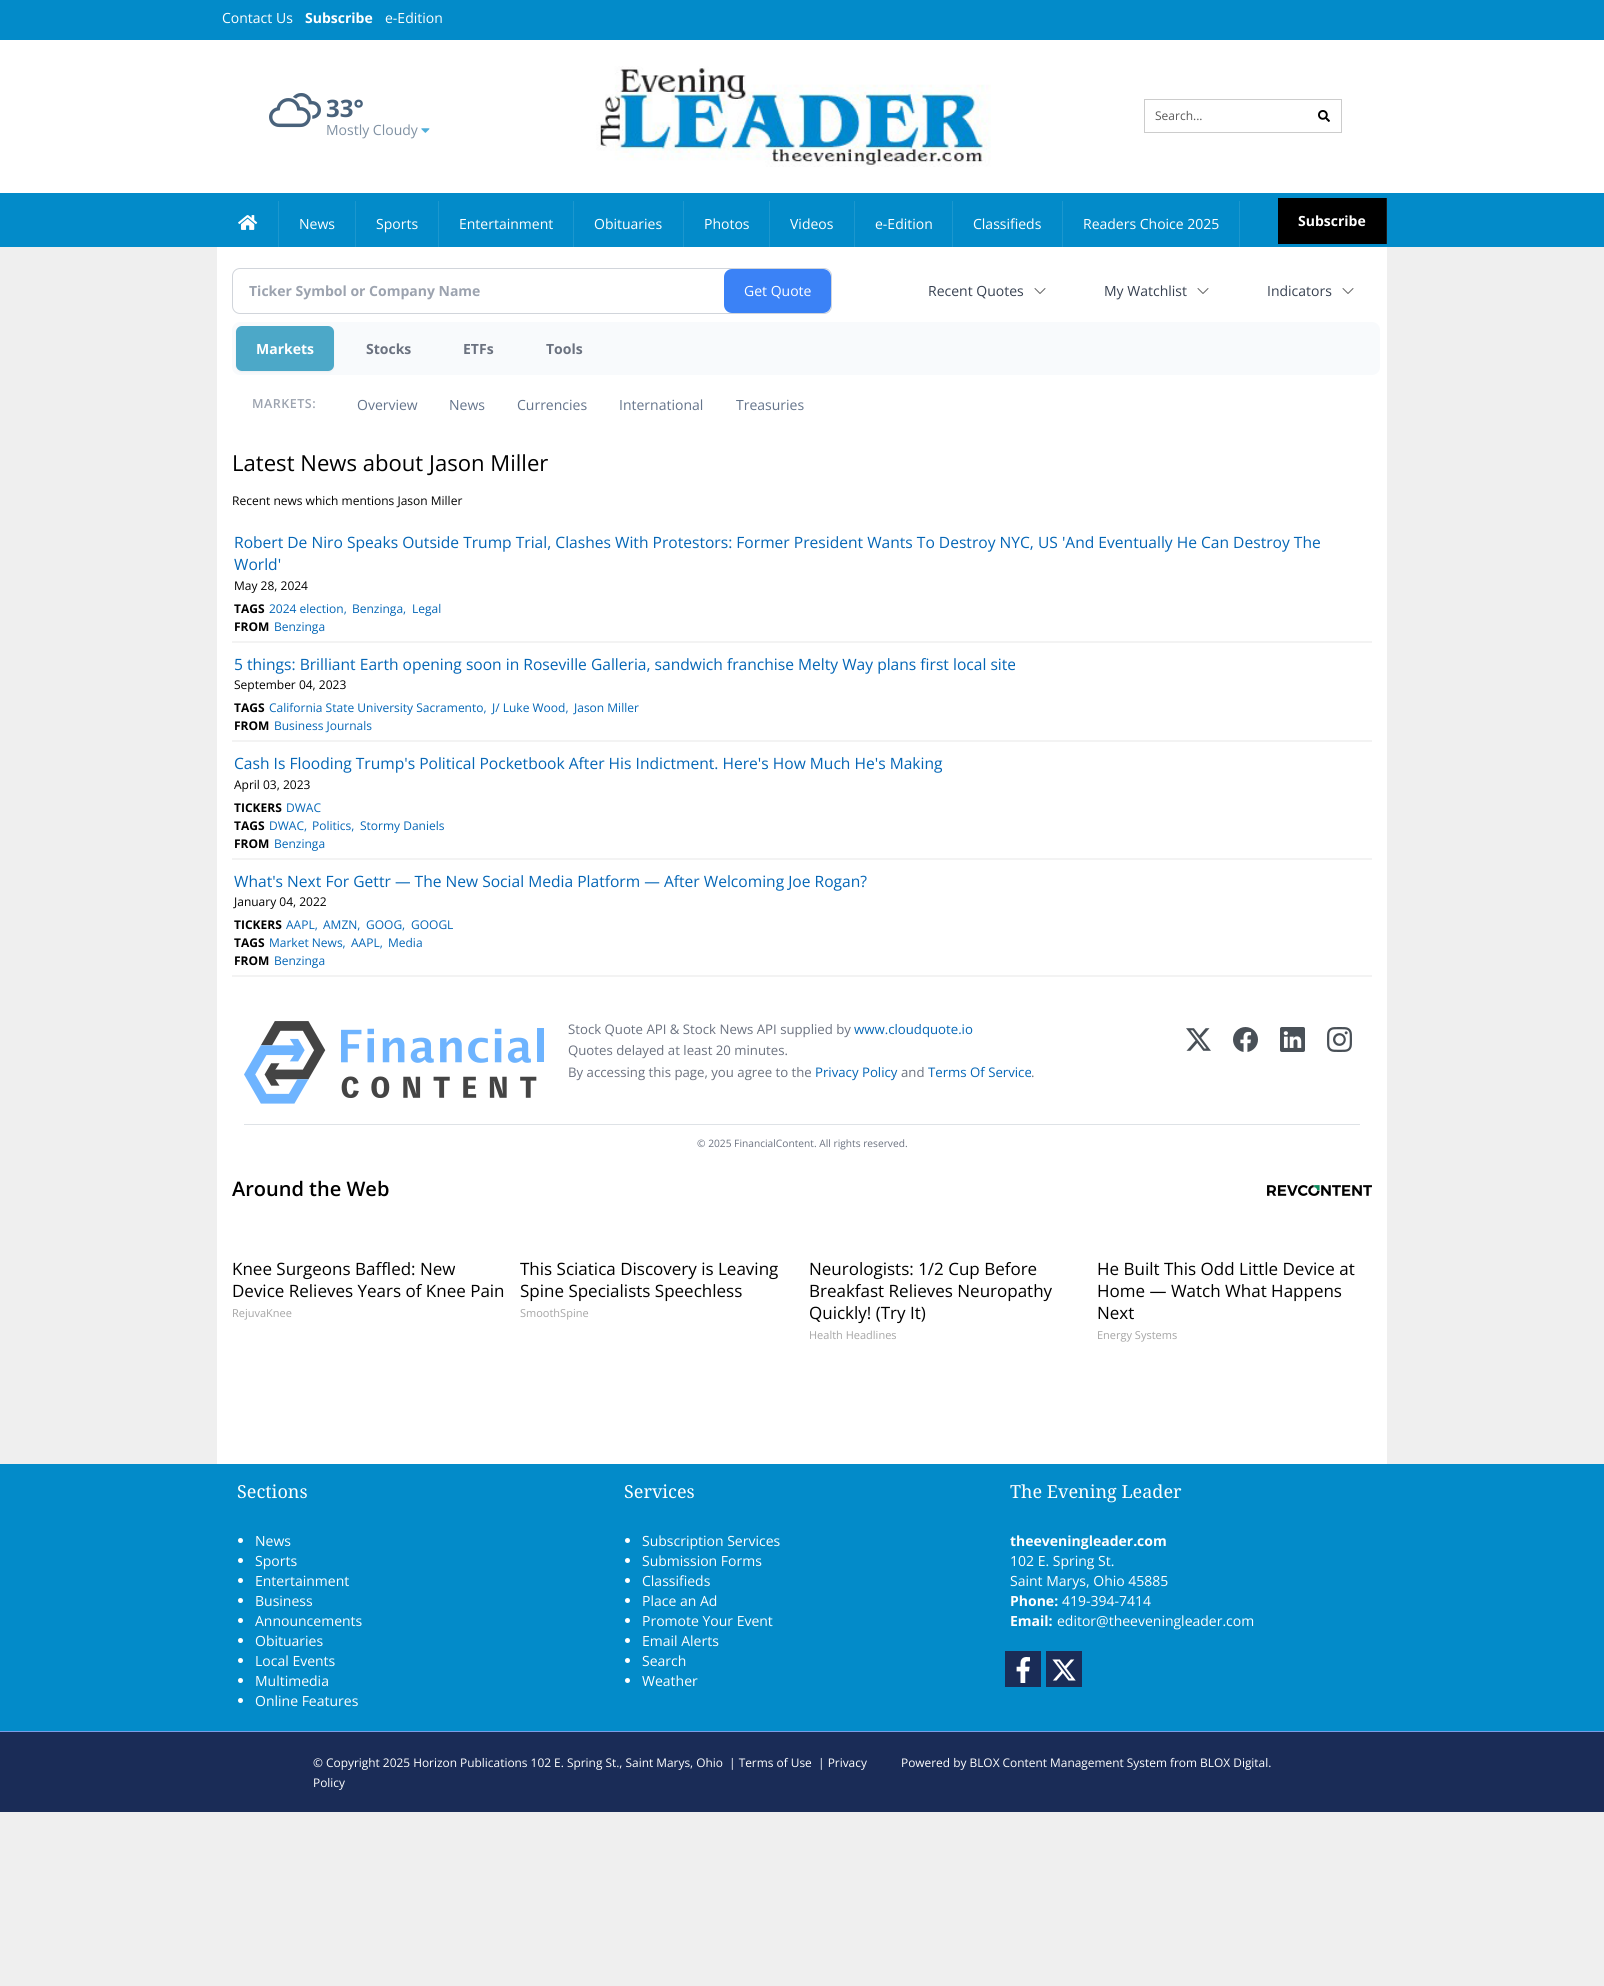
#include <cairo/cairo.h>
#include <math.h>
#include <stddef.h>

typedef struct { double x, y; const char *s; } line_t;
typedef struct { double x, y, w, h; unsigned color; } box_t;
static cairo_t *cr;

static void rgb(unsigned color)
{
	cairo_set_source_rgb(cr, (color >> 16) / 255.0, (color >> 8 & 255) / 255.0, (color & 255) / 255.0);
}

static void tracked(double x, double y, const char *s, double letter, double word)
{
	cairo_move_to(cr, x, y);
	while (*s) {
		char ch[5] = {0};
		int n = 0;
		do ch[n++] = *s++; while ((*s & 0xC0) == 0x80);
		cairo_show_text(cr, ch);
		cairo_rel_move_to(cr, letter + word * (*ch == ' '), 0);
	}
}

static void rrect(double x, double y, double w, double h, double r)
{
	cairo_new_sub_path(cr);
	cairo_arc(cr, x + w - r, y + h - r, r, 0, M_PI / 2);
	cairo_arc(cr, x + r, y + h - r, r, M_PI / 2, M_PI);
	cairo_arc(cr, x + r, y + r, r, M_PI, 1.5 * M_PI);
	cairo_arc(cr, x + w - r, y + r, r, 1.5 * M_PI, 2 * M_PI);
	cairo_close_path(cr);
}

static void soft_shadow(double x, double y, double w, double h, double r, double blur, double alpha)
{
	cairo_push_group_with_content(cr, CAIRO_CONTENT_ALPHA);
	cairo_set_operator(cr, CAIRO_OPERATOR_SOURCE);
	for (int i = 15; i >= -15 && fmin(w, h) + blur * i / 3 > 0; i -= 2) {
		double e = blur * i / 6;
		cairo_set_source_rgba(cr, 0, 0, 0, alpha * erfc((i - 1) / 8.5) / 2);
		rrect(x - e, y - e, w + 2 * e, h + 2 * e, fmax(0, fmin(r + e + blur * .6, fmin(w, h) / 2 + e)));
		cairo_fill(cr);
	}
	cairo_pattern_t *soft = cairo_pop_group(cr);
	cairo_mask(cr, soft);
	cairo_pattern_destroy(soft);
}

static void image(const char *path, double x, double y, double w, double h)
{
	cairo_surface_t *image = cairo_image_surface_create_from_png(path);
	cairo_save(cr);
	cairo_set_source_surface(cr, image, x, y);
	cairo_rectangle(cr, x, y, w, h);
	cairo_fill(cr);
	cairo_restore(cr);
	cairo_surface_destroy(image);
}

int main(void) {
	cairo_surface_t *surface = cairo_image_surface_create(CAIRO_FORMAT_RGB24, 1604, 1986);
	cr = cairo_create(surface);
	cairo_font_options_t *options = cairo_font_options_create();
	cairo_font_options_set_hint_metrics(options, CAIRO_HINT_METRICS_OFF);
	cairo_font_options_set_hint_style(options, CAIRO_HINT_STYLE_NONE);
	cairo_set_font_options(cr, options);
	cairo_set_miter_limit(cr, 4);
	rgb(0xefefef);
	cairo_paint(cr);
	{
		static const box_t items[] = {
			{0, 0, 1604, 40, 0x038bc9},
			{0, 40, 1604, 153, 0xffffff},
			{0, 193, 1604, 54, 0x038bc9},
		};
		for (size_t i = 0; i < sizeof items / sizeof *items; i++) {
			rgb(items[i].color);
			cairo_rectangle(cr, items[i].x, items[i].y, items[i].w, items[i].h);
			cairo_fill(cr);
		}
	}
	image("img/1.png", 269, 93, 52, 35);
	image("img/2.png", 421, 128, 9, 5);
	image("img/3.png", 596, 66, 395, 101);
	cairo_rectangle(cr, 1144.5, 99.5, 197, 33);
	rgb(0xcccccc);
	cairo_set_line_width(cr, 1);
	cairo_stroke(cr);
	image("img/4.png", 1318, 110, 12, 12);
	rgb(0x1c97ce);
	cairo_rectangle(cr, 278, 201, 1, 46);
	cairo_fill(cr);
	image("img/5.png", 238, 215, 20, 15);
	{
		static const box_t items[] = {
			{355, 201, 1, 46, 0x1c97ce},
			{438, 201, 1, 46, 0x1c97ce},
			{573, 201, 1, 46, 0x1c97ce},
			{683, 201, 1, 46, 0x1c97ce},
			{769, 201, 1, 46, 0x1c97ce},
			{854, 201, 1, 46, 0x1c97ce},
			{952, 201, 1, 46, 0x1c97ce},
			{1062, 201, 1, 46, 0x1c97ce},
			{1239, 201, 1, 46, 0x1c97ce},
			{1278, 198, 108, 46, 0x000000},
			{1386, 198, 1, 46, 0x1a1a1a},
			{217, 247, 1170, 1217, 0xffffff},
		};
		for (size_t i = 0; i < sizeof items / sizeof *items; i++) {
			rgb(items[i].color);
			cairo_rectangle(cr, items[i].x, items[i].y, items[i].w, items[i].h);
			cairo_fill(cr);
		}
	}
	rrect(232.5, 268.5, 599, 45, 7.5);
	rgb(0xd1d5db);
	cairo_stroke(cr);
	rgb(0x3b82f6);
	rrect(724, 269, 107, 44, 8);
	cairo_fill(cr);
	cairo_new_path(cr);
	cairo_move_to(cr, 1045, 288.5);
	cairo_line_to(cr, 1040, 293.5);
	cairo_line_to(cr, 1035, 288.5);
	rgb(0x666666);
	cairo_set_line_cap(cr, CAIRO_LINE_CAP_ROUND);
	cairo_set_line_join(cr, CAIRO_LINE_JOIN_ROUND);
	cairo_stroke(cr);
	cairo_new_path(cr);
	cairo_move_to(cr, 1208, 288.5);
	cairo_line_to(cr, 1203, 293.5);
	cairo_line_to(cr, 1198, 288.5);
	cairo_stroke(cr);
	cairo_new_path(cr);
	cairo_move_to(cr, 1353, 288.5);
	cairo_line_to(cr, 1348, 293.5);
	cairo_line_to(cr, 1343, 288.5);
	cairo_stroke(cr);
	rgb(0xf8fafc);
	rrect(232, 322, 1148, 53, 8);
	cairo_fill(cr);
	rgb(0x000000);
	soft_shadow(236, 327, 98, 45, 6, 1, 0.05);
	rgb(0x4ca8c8);
	rrect(236, 326, 98, 45, 6);
	cairo_fill(cr);
	{
		static const box_t items[] = {
			{232, 641, 1140, 2, 0xf3f3f3},
			{232, 740, 1140, 2, 0xf3f3f3},
			{232, 858, 1140, 2, 0xf3f3f3},
			{232, 975, 1140, 2, 0xf3f3f3},
		};
		for (size_t i = 0; i < sizeof items / sizeof *items; i++) {
			rgb(items[i].color);
			cairo_rectangle(cr, items[i].x, items[i].y, items[i].w, items[i].h);
			cairo_fill(cr);
		}
	}
	image("img/6.png", 244, 1021, 300, 83);
	image("img/7.png", 1186, 1028, 25, 23);
	image("img/8.png", 1233, 1027, 25, 25);
	image("img/9.png", 1280, 1027, 25, 25);
	image("img/10.png", 1327, 1027, 25, 25);
	rgb(0xdee2e6);
	cairo_rectangle(cr, 244, 1124, 1116, 1);
	cairo_fill(cr);
	image("img/11.png", 1267, 1185, 105, 11);
	rgb(0x038bc9);
	cairo_rectangle(cr, 0, 1464, 1604, 267);
	cairo_fill(cr);
	rgb(0xffffff);
	cairo_arc(cr, 240.5, 1540.5, 2.5, 0, 2 * M_PI);
	cairo_fill(cr);
	cairo_arc(cr, 240.5, 1560.5, 2.5, 0, 2 * M_PI);
	cairo_fill(cr);
	cairo_arc(cr, 240.5, 1580.5, 2.5, 0, 2 * M_PI);
	cairo_fill(cr);
	cairo_arc(cr, 240.5, 1600.5, 2.5, 0, 2 * M_PI);
	cairo_fill(cr);
	cairo_arc(cr, 240.5, 1620.5, 2.5, 0, 2 * M_PI);
	cairo_fill(cr);
	cairo_arc(cr, 240.5, 1640.5, 2.5, 0, 2 * M_PI);
	cairo_fill(cr);
	cairo_arc(cr, 240.5, 1660.5, 2.5, 0, 2 * M_PI);
	cairo_fill(cr);
	cairo_arc(cr, 240.5, 1680.5, 2.5, 0, 2 * M_PI);
	cairo_fill(cr);
	cairo_arc(cr, 240.5, 1700.5, 2.5, 0, 2 * M_PI);
	cairo_fill(cr);
	cairo_arc(cr, 627.5, 1540.5, 2.5, 0, 2 * M_PI);
	cairo_fill(cr);
	cairo_arc(cr, 627.5, 1560.5, 2.5, 0, 2 * M_PI);
	cairo_fill(cr);
	cairo_arc(cr, 627.5, 1580.5, 2.5, 0, 2 * M_PI);
	cairo_fill(cr);
	cairo_arc(cr, 627.5, 1600.5, 2.5, 0, 2 * M_PI);
	cairo_fill(cr);
	cairo_arc(cr, 627.5, 1620.5, 2.5, 0, 2 * M_PI);
	cairo_fill(cr);
	cairo_arc(cr, 627.5, 1640.5, 2.5, 0, 2 * M_PI);
	cairo_fill(cr);
	cairo_arc(cr, 627.5, 1660.5, 2.5, 0, 2 * M_PI);
	cairo_fill(cr);
	cairo_arc(cr, 627.5, 1680.5, 2.5, 0, 2 * M_PI);
	cairo_fill(cr);
	rgb(0x1a2c57);
	cairo_rectangle(cr, 1005, 1651, 36, 36);
	cairo_fill(cr);
	image("img/12.png", 1016, 1657, 14, 26);
	cairo_rectangle(cr, 1046, 1651, 36, 36);
	cairo_fill(cr);
	image("img/13.png", 1052, 1659, 24, 22);
	cairo_rectangle(cr, 0, 1732, 1604, 80);
	cairo_fill(cr);
	rgb(0x7c9ce5);
	cairo_rectangle(cr, 0, 1731, 1604, 1);
	cairo_fill(cr);
	cairo_select_font_face(cr, "Open Sans", CAIRO_FONT_SLANT_NORMAL, CAIRO_FONT_WEIGHT_NORMAL);
	cairo_set_font_size(cr, 14);
	rgb(0xffffff);
	cairo_move_to(cr, 222, 23);
	cairo_show_text(cr, "Contact Us");
	cairo_select_font_face(cr, "Open Sans", CAIRO_FONT_SLANT_NORMAL, CAIRO_FONT_WEIGHT_BOLD);
	cairo_move_to(cr, 305, 23);
	cairo_show_text(cr, "Subscribe");
	cairo_select_font_face(cr, "Open Sans", CAIRO_FONT_SLANT_NORMAL, CAIRO_FONT_WEIGHT_NORMAL);
	cairo_move_to(cr, 385, 23);
	cairo_show_text(cr, "e-Edition");
	cairo_select_font_face(cr, "Open Sans", CAIRO_FONT_SLANT_NORMAL, CAIRO_FONT_WEIGHT_BOLD);
	cairo_set_font_size(cr, 24);
	rgb(0x49627b);
	cairo_move_to(cr, 326, 117);
	cairo_show_text(cr, "33°");
	cairo_select_font_face(cr, "Open Sans", CAIRO_FONT_SLANT_NORMAL, CAIRO_FONT_WEIGHT_NORMAL);
	cairo_set_font_size(cr, 14);
	rgb(0x8091a3);
	cairo_move_to(cr, 326, 135);
	cairo_show_text(cr, "Mostly Cloudy");
	cairo_set_font_size(cr, 12);
	rgb(0x595959);
	cairo_move_to(cr, 1155, 120);
	cairo_show_text(cr, "Search...");
	cairo_set_font_size(cr, 14);
	rgb(0xffffff);
	{
		static const line_t items[] = {
			{299, 229, "News"},
			{376, 229, "Sports"},
			{459, 229, "Entertainment"},
			{594, 229, "Obituaries"},
			{704, 229, "Photos"},
			{790, 229, "Videos"},
			{875, 229, "e-Edition"},
			{973, 229, "Classifieds"},
			{1083, 229, "Readers Choice 2025"},
		};
		for (size_t i = 0; i < sizeof items / sizeof *items; i++) {
			cairo_move_to(cr, items[i].x, items[i].y);
			cairo_show_text(cr, items[i].s);
		}
	}
	cairo_select_font_face(cr, "Open Sans", CAIRO_FONT_SLANT_NORMAL, CAIRO_FONT_WEIGHT_BOLD);
	cairo_move_to(cr, 1298, 226);
	cairo_show_text(cr, "Subscribe");
	rgb(0x9ca3af);
	cairo_move_to(cr, 249, 296);
	cairo_show_text(cr, "Ticker Symbol or Company Name");
	cairo_select_font_face(cr, "Open Sans", CAIRO_FONT_SLANT_NORMAL, CAIRO_FONT_WEIGHT_NORMAL);
	rgb(0xffffff);
	cairo_move_to(cr, 744, 296);
	cairo_show_text(cr, "Get Quote");
	rgb(0x374151);
	{
		static const line_t items[] = {
			{928, 296, "Recent Quotes"},
			{1104, 296, "My Watchlist"},
			{1267, 296, "Indicators"},
		};
		for (size_t i = 0; i < sizeof items / sizeof *items; i++) {
			cairo_move_to(cr, items[i].x, items[i].y);
			cairo_show_text(cr, items[i].s);
		}
	}
	cairo_select_font_face(cr, "Open Sans", CAIRO_FONT_SLANT_NORMAL, CAIRO_FONT_WEIGHT_BOLD);
	rgb(0xffffff);
	cairo_move_to(cr, 256, 354);
	cairo_show_text(cr, "Markets");
	rgb(0x6b7280);
	{
		static const line_t items[] = {
			{366, 354, "Stocks"},
			{463, 354, "ETFs"},
			{546, 354, "Tools"},
		};
		for (size_t i = 0; i < sizeof items / sizeof *items; i++) {
			cairo_move_to(cr, items[i].x, items[i].y);
			cairo_show_text(cr, items[i].s);
		}
	}
	cairo_select_font_face(cr, "Open Sans SemiBold", CAIRO_FONT_SLANT_NORMAL, CAIRO_FONT_WEIGHT_NORMAL);
	cairo_set_font_size(cr, 12.5);
	rgb(0x9ca3af);
	tracked(252, 408, "MARKETS:", 0.5, 0);
	cairo_select_font_face(cr, "Open Sans", CAIRO_FONT_SLANT_NORMAL, CAIRO_FONT_WEIGHT_NORMAL);
	cairo_set_font_size(cr, 14);
	rgb(0x64748b);
	{
		static const line_t items[] = {
			{357, 410, "Overview"},
			{449, 410, "News"},
			{517, 410, "Currencies"},
			{619, 410, "International"},
			{736, 410, "Treasuries"},
		};
		for (size_t i = 0; i < sizeof items / sizeof *items; i++) {
			cairo_move_to(cr, items[i].x, items[i].y);
			cairo_show_text(cr, items[i].s);
		}
	}
	cairo_set_font_size(cr, 22.1);
	rgb(0x000000);
	cairo_move_to(cr, 232, 471);
	cairo_show_text(cr, "Latest News about Jason Miller");
	cairo_set_font_size(cr, 12);
	cairo_move_to(cr, 232, 505);
	cairo_show_text(cr, "Recent news which mentions Jason Miller");
	cairo_set_font_size(cr, 15.6);
	rgb(0x0466b6);
	cairo_move_to(cr, 234, 548);
	cairo_show_text(cr, "Robert De Niro Speaks Outside Trump Trial, Clashes With Protestors: Former President Wants To Destroy NYC, US 'And Eventually He Can Destroy The");
	cairo_move_to(cr, 234, 570);
	cairo_show_text(cr, "World'");
	cairo_set_font_size(cr, 12);
	rgb(0x000000);
	cairo_move_to(cr, 234, 590);
	cairo_show_text(cr, "May 28, 2024");
	cairo_select_font_face(cr, "Open Sans", CAIRO_FONT_SLANT_NORMAL, CAIRO_FONT_WEIGHT_BOLD);
	cairo_move_to(cr, 234, 613);
	cairo_show_text(cr, "TAGS");
	cairo_select_font_face(cr, "Open Sans", CAIRO_FONT_SLANT_NORMAL, CAIRO_FONT_WEIGHT_NORMAL);
	rgb(0x0466b6);
	{
		static const line_t items[] = {
			{269, 613, "2024 election,"},
			{352, 613, "Benzinga,"},
			{412, 613, "Legal"},
		};
		for (size_t i = 0; i < sizeof items / sizeof *items; i++) {
			cairo_move_to(cr, items[i].x, items[i].y);
			cairo_show_text(cr, items[i].s);
		}
	}
	cairo_select_font_face(cr, "Open Sans", CAIRO_FONT_SLANT_NORMAL, CAIRO_FONT_WEIGHT_BOLD);
	rgb(0x000000);
	cairo_move_to(cr, 234, 631);
	cairo_show_text(cr, "FROM");
	cairo_select_font_face(cr, "Open Sans", CAIRO_FONT_SLANT_NORMAL, CAIRO_FONT_WEIGHT_NORMAL);
	rgb(0x0466b6);
	cairo_move_to(cr, 274, 631);
	cairo_show_text(cr, "Benzinga");
	cairo_set_font_size(cr, 15.6);
	cairo_move_to(cr, 234, 670);
	cairo_show_text(cr, "5 things: Brilliant Earth opening soon in Roseville Galleria, sandwich franchise Melty Way plans first local site");
	cairo_set_font_size(cr, 12);
	rgb(0x000000);
	cairo_move_to(cr, 234, 689);
	cairo_show_text(cr, "September 04, 2023");
	cairo_select_font_face(cr, "Open Sans", CAIRO_FONT_SLANT_NORMAL, CAIRO_FONT_WEIGHT_BOLD);
	cairo_move_to(cr, 234, 712);
	cairo_show_text(cr, "TAGS");
	cairo_select_font_face(cr, "Open Sans", CAIRO_FONT_SLANT_NORMAL, CAIRO_FONT_WEIGHT_NORMAL);
	rgb(0x0466b6);
	{
		static const line_t items[] = {
			{269, 712, "California State University Sacramento,"},
			{492, 712, "J/ Luke Wood,"},
			{574, 712, "Jason Miller"},
		};
		for (size_t i = 0; i < sizeof items / sizeof *items; i++) {
			cairo_move_to(cr, items[i].x, items[i].y);
			cairo_show_text(cr, items[i].s);
		}
	}
	cairo_select_font_face(cr, "Open Sans", CAIRO_FONT_SLANT_NORMAL, CAIRO_FONT_WEIGHT_BOLD);
	rgb(0x000000);
	cairo_move_to(cr, 234, 730);
	cairo_show_text(cr, "FROM");
	cairo_select_font_face(cr, "Open Sans", CAIRO_FONT_SLANT_NORMAL, CAIRO_FONT_WEIGHT_NORMAL);
	rgb(0x0466b6);
	cairo_move_to(cr, 274, 730);
	cairo_show_text(cr, "Business Journals");
	cairo_set_font_size(cr, 15.6);
	cairo_move_to(cr, 234, 769);
	cairo_show_text(cr, "Cash Is Flooding Trump's Political Pocketbook After His Indictment. Here's How Much He's Making");
	cairo_set_font_size(cr, 12);
	rgb(0x000000);
	cairo_move_to(cr, 234, 789);
	cairo_show_text(cr, "April 03, 2023");
	cairo_select_font_face(cr, "Open Sans", CAIRO_FONT_SLANT_NORMAL, CAIRO_FONT_WEIGHT_BOLD);
	cairo_move_to(cr, 234, 812);
	cairo_show_text(cr, "TICKERS");
	cairo_select_font_face(cr, "Open Sans", CAIRO_FONT_SLANT_NORMAL, CAIRO_FONT_WEIGHT_NORMAL);
	rgb(0x0466b6);
	cairo_move_to(cr, 286, 812);
	cairo_show_text(cr, "DWAC");
	cairo_select_font_face(cr, "Open Sans", CAIRO_FONT_SLANT_NORMAL, CAIRO_FONT_WEIGHT_BOLD);
	rgb(0x000000);
	cairo_move_to(cr, 234, 830);
	cairo_show_text(cr, "TAGS");
	cairo_select_font_face(cr, "Open Sans", CAIRO_FONT_SLANT_NORMAL, CAIRO_FONT_WEIGHT_NORMAL);
	rgb(0x0466b6);
	{
		static const line_t items[] = {
			{269, 830, "DWAC,"},
			{312, 830, "Politics,"},
			{360, 830, "Stormy Daniels"},
		};
		for (size_t i = 0; i < sizeof items / sizeof *items; i++) {
			cairo_move_to(cr, items[i].x, items[i].y);
			cairo_show_text(cr, items[i].s);
		}
	}
	cairo_select_font_face(cr, "Open Sans", CAIRO_FONT_SLANT_NORMAL, CAIRO_FONT_WEIGHT_BOLD);
	rgb(0x000000);
	cairo_move_to(cr, 234, 848);
	cairo_show_text(cr, "FROM");
	cairo_select_font_face(cr, "Open Sans", CAIRO_FONT_SLANT_NORMAL, CAIRO_FONT_WEIGHT_NORMAL);
	rgb(0x0466b6);
	cairo_move_to(cr, 274, 848);
	cairo_show_text(cr, "Benzinga");
	cairo_set_font_size(cr, 15.6);
	cairo_move_to(cr, 234, 887);
	cairo_show_text(cr, "What's Next For Gettr — The New Social Media Platform — After Welcoming Joe Rogan?");
	cairo_set_font_size(cr, 12);
	rgb(0x000000);
	cairo_move_to(cr, 234, 906);
	cairo_show_text(cr, "January 04, 2022");
	cairo_select_font_face(cr, "Open Sans", CAIRO_FONT_SLANT_NORMAL, CAIRO_FONT_WEIGHT_BOLD);
	cairo_move_to(cr, 234, 929);
	cairo_show_text(cr, "TICKERS");
	cairo_select_font_face(cr, "Open Sans", CAIRO_FONT_SLANT_NORMAL, CAIRO_FONT_WEIGHT_NORMAL);
	rgb(0x0466b6);
	{
		static const line_t items[] = {
			{286, 929, "AAPL,"},
			{323, 929, "AMZN,"},
			{366, 929, "GOOG,"},
			{411, 929, "GOOGL"},
		};
		for (size_t i = 0; i < sizeof items / sizeof *items; i++) {
			cairo_move_to(cr, items[i].x, items[i].y);
			cairo_show_text(cr, items[i].s);
		}
	}
	cairo_select_font_face(cr, "Open Sans", CAIRO_FONT_SLANT_NORMAL, CAIRO_FONT_WEIGHT_BOLD);
	rgb(0x000000);
	cairo_move_to(cr, 234, 947);
	cairo_show_text(cr, "TAGS");
	cairo_select_font_face(cr, "Open Sans", CAIRO_FONT_SLANT_NORMAL, CAIRO_FONT_WEIGHT_NORMAL);
	rgb(0x0466b6);
	{
		static const line_t items[] = {
			{269, 947, "Market News,"},
			{351, 947, "AAPL,"},
			{388, 947, "Media"},
		};
		for (size_t i = 0; i < sizeof items / sizeof *items; i++) {
			cairo_move_to(cr, items[i].x, items[i].y);
			cairo_show_text(cr, items[i].s);
		}
	}
	cairo_select_font_face(cr, "Open Sans", CAIRO_FONT_SLANT_NORMAL, CAIRO_FONT_WEIGHT_BOLD);
	rgb(0x000000);
	cairo_move_to(cr, 234, 965);
	cairo_show_text(cr, "FROM");
	cairo_select_font_face(cr, "Open Sans", CAIRO_FONT_SLANT_NORMAL, CAIRO_FONT_WEIGHT_NORMAL);
	rgb(0x0466b6);
	cairo_move_to(cr, 274, 965);
	cairo_show_text(cr, "Benzinga");
	cairo_set_font_size(cr, 13.2);
	rgb(0x6b7280);
	cairo_move_to(cr, 568, 1034);
	cairo_show_text(cr, "Stock Quote API & Stock News API supplied by");
	rgb(0x0466b6);
	cairo_move_to(cr, 854, 1034);
	cairo_show_text(cr, "www.cloudquote.io");
	rgb(0x6b7280);
	cairo_move_to(cr, 568, 1055);
	cairo_show_text(cr, "Quotes delayed at least 20 minutes.");
	cairo_move_to(cr, 568, 1077);
	cairo_show_text(cr, "By accessing this page, you agree to the");
	rgb(0x0466b6);
	cairo_move_to(cr, 815, 1077);
	cairo_show_text(cr, "Privacy Policy");
	rgb(0x6b7280);
	cairo_move_to(cr, 901, 1077);
	cairo_show_text(cr, "and");
	rgb(0x0466b6);
	cairo_move_to(cr, 928, 1077);
	cairo_show_text(cr, "Terms Of Service");
	rgb(0x6b7280);
	cairo_move_to(cr, 1031, 1077);
	cairo_show_text(cr, ".");
	cairo_set_font_size(cr, 10.2);
	cairo_move_to(cr, 697, 1147);
	cairo_show_text(cr, "© 2025 FinancialContent. All rights reserved.");
	cairo_select_font_face(cr, "Open Sans SemiBold", CAIRO_FONT_SLANT_NORMAL, CAIRO_FONT_WEIGHT_NORMAL);
	cairo_set_font_size(cr, 20);
	rgb(0x000000);
	cairo_move_to(cr, 232, 1196);
	cairo_show_text(cr, "Around the Web");
	cairo_select_font_face(cr, "Open Sans", CAIRO_FONT_SLANT_NORMAL, CAIRO_FONT_WEIGHT_NORMAL);
	cairo_set_font_size(cr, 17);
	cairo_move_to(cr, 232, 1275);
	cairo_show_text(cr, "Knee Surgeons Baffled: New");
	cairo_move_to(cr, 232, 1297);
	cairo_show_text(cr, "Device Relieves Years of Knee Pain");
	cairo_set_font_size(cr, 11);
	rgb(0xa5a5a5);
	cairo_move_to(cr, 232, 1317);
	cairo_show_text(cr, "RejuvaKnee");
	cairo_set_font_size(cr, 17);
	rgb(0x000000);
	cairo_move_to(cr, 520, 1275);
	cairo_show_text(cr, "This Sciatica Discovery is Leaving");
	cairo_move_to(cr, 520, 1297);
	cairo_show_text(cr, "Spine Specialists Speechless");
	cairo_set_font_size(cr, 11);
	rgb(0xa5a5a5);
	cairo_move_to(cr, 520, 1317);
	cairo_show_text(cr, "SmoothSpine");
	cairo_set_font_size(cr, 17);
	rgb(0x000000);
	{
		static const line_t items[] = {
			{809, 1275, "Neurologists: 1/2 Cup Before"},
			{809, 1297, "Breakfast Relieves Neurоpathy"},
			{809, 1319, "Quickly! (Try It)"},
		};
		for (size_t i = 0; i < sizeof items / sizeof *items; i++) {
			cairo_move_to(cr, items[i].x, items[i].y);
			cairo_show_text(cr, items[i].s);
		}
	}
	cairo_set_font_size(cr, 11);
	rgb(0xa5a5a5);
	cairo_move_to(cr, 809, 1339);
	cairo_show_text(cr, "Health Headlines");
	cairo_set_font_size(cr, 17);
	rgb(0x000000);
	{
		static const line_t items[] = {
			{1097, 1275, "He Built This Odd Little Device at"},
			{1097, 1297, "Home — Watch What Happens"},
			{1097, 1319, "Next"},
		};
		for (size_t i = 0; i < sizeof items / sizeof *items; i++) {
			cairo_move_to(cr, items[i].x, items[i].y);
			cairo_show_text(cr, items[i].s);
		}
	}
	cairo_set_font_size(cr, 11);
	rgb(0xa5a5a5);
	cairo_move_to(cr, 1097, 1339);
	cairo_show_text(cr, "Energy Systems");
	cairo_select_font_face(cr, "Droid Serif", CAIRO_FONT_SLANT_NORMAL, CAIRO_FONT_WEIGHT_NORMAL);
	cairo_set_font_size(cr, 18);
	rgb(0xffffff);
	cairo_move_to(cr, 237, 1498);
	cairo_show_text(cr, "Sections");
	cairo_select_font_face(cr, "Open Sans", CAIRO_FONT_SLANT_NORMAL, CAIRO_FONT_WEIGHT_NORMAL);
	cairo_set_font_size(cr, 14);
	{
		static const line_t items[] = {
			{255, 1546, "News"},
			{255, 1566, "Sports"},
			{255, 1586, "Entertainment"},
			{255, 1606, "Business"},
			{255, 1626, "Announcements"},
			{255, 1646, "Obituaries"},
			{255, 1666, "Local Events"},
			{255, 1686, "Multimedia"},
			{255, 1706, "Online Features"},
		};
		for (size_t i = 0; i < sizeof items / sizeof *items; i++) {
			cairo_move_to(cr, items[i].x, items[i].y);
			cairo_show_text(cr, items[i].s);
		}
	}
	cairo_select_font_face(cr, "Droid Serif", CAIRO_FONT_SLANT_NORMAL, CAIRO_FONT_WEIGHT_NORMAL);
	cairo_set_font_size(cr, 18);
	cairo_move_to(cr, 624, 1498);
	cairo_show_text(cr, "Services");
	cairo_select_font_face(cr, "Open Sans", CAIRO_FONT_SLANT_NORMAL, CAIRO_FONT_WEIGHT_NORMAL);
	cairo_set_font_size(cr, 14);
	{
		static const line_t items[] = {
			{642, 1546, "Subscription Services"},
			{642, 1566, "Submission Forms"},
			{642, 1586, "Classifieds"},
			{642, 1606, "Place an Ad"},
			{642, 1626, "Promote Your Event"},
			{642, 1646, "Email Alerts"},
			{642, 1666, "Search"},
			{642, 1686, "Weather"},
		};
		for (size_t i = 0; i < sizeof items / sizeof *items; i++) {
			cairo_move_to(cr, items[i].x, items[i].y);
			cairo_show_text(cr, items[i].s);
		}
	}
	cairo_select_font_face(cr, "Droid Serif", CAIRO_FONT_SLANT_NORMAL, CAIRO_FONT_WEIGHT_NORMAL);
	cairo_set_font_size(cr, 18);
	cairo_move_to(cr, 1010, 1498);
	cairo_show_text(cr, "The Evening Leader");
	cairo_select_font_face(cr, "Open Sans", CAIRO_FONT_SLANT_NORMAL, CAIRO_FONT_WEIGHT_BOLD);
	cairo_set_font_size(cr, 14);
	cairo_move_to(cr, 1010, 1546);
	cairo_show_text(cr, "theeveningleader.com");
	cairo_select_font_face(cr, "Open Sans", CAIRO_FONT_SLANT_NORMAL, CAIRO_FONT_WEIGHT_NORMAL);
	cairo_move_to(cr, 1010, 1566);
	cairo_show_text(cr, "102 E. Spring St.");
	cairo_move_to(cr, 1010, 1586);
	cairo_show_text(cr, "Saint Marys, Ohio 45885");
	cairo_select_font_face(cr, "Open Sans", CAIRO_FONT_SLANT_NORMAL, CAIRO_FONT_WEIGHT_BOLD);
	cairo_move_to(cr, 1010, 1606);
	cairo_show_text(cr, "Phone:");
	cairo_select_font_face(cr, "Open Sans", CAIRO_FONT_SLANT_NORMAL, CAIRO_FONT_WEIGHT_NORMAL);
	cairo_move_to(cr, 1062, 1606);
	cairo_show_text(cr, "419-394-7414");
	cairo_select_font_face(cr, "Open Sans", CAIRO_FONT_SLANT_NORMAL, CAIRO_FONT_WEIGHT_BOLD);
	cairo_move_to(cr, 1010, 1626);
	cairo_show_text(cr, "Email:");
	cairo_select_font_face(cr, "Open Sans", CAIRO_FONT_SLANT_NORMAL, CAIRO_FONT_WEIGHT_NORMAL);
	cairo_move_to(cr, 1057, 1626);
	cairo_show_text(cr, "editor@theeveningleader.com");
	cairo_set_font_size(cr, 11.9);
	{
		static const line_t items[] = {
			{313, 1767, "© Copyright 2025 Horizon Publications 102 E. Spring St., Saint Marys, Ohio"},
			{729, 1767, "| Terms of Use"},
			{818, 1767, "| Privacy"},
			{313, 1787, "Policy"},
			{901, 1767, "Powered by BLOX Content Management System from BLOX Digital."},
		};
		for (size_t i = 0; i < sizeof items / sizeof *items; i++) {
			cairo_move_to(cr, items[i].x, items[i].y);
			cairo_show_text(cr, items[i].s);
		}
	}
	cairo_surface_write_to_png(surface, "page.png");
	cairo_font_options_destroy(options);
	cairo_destroy(cr);
	cairo_surface_destroy(surface);
	return 0;
}
